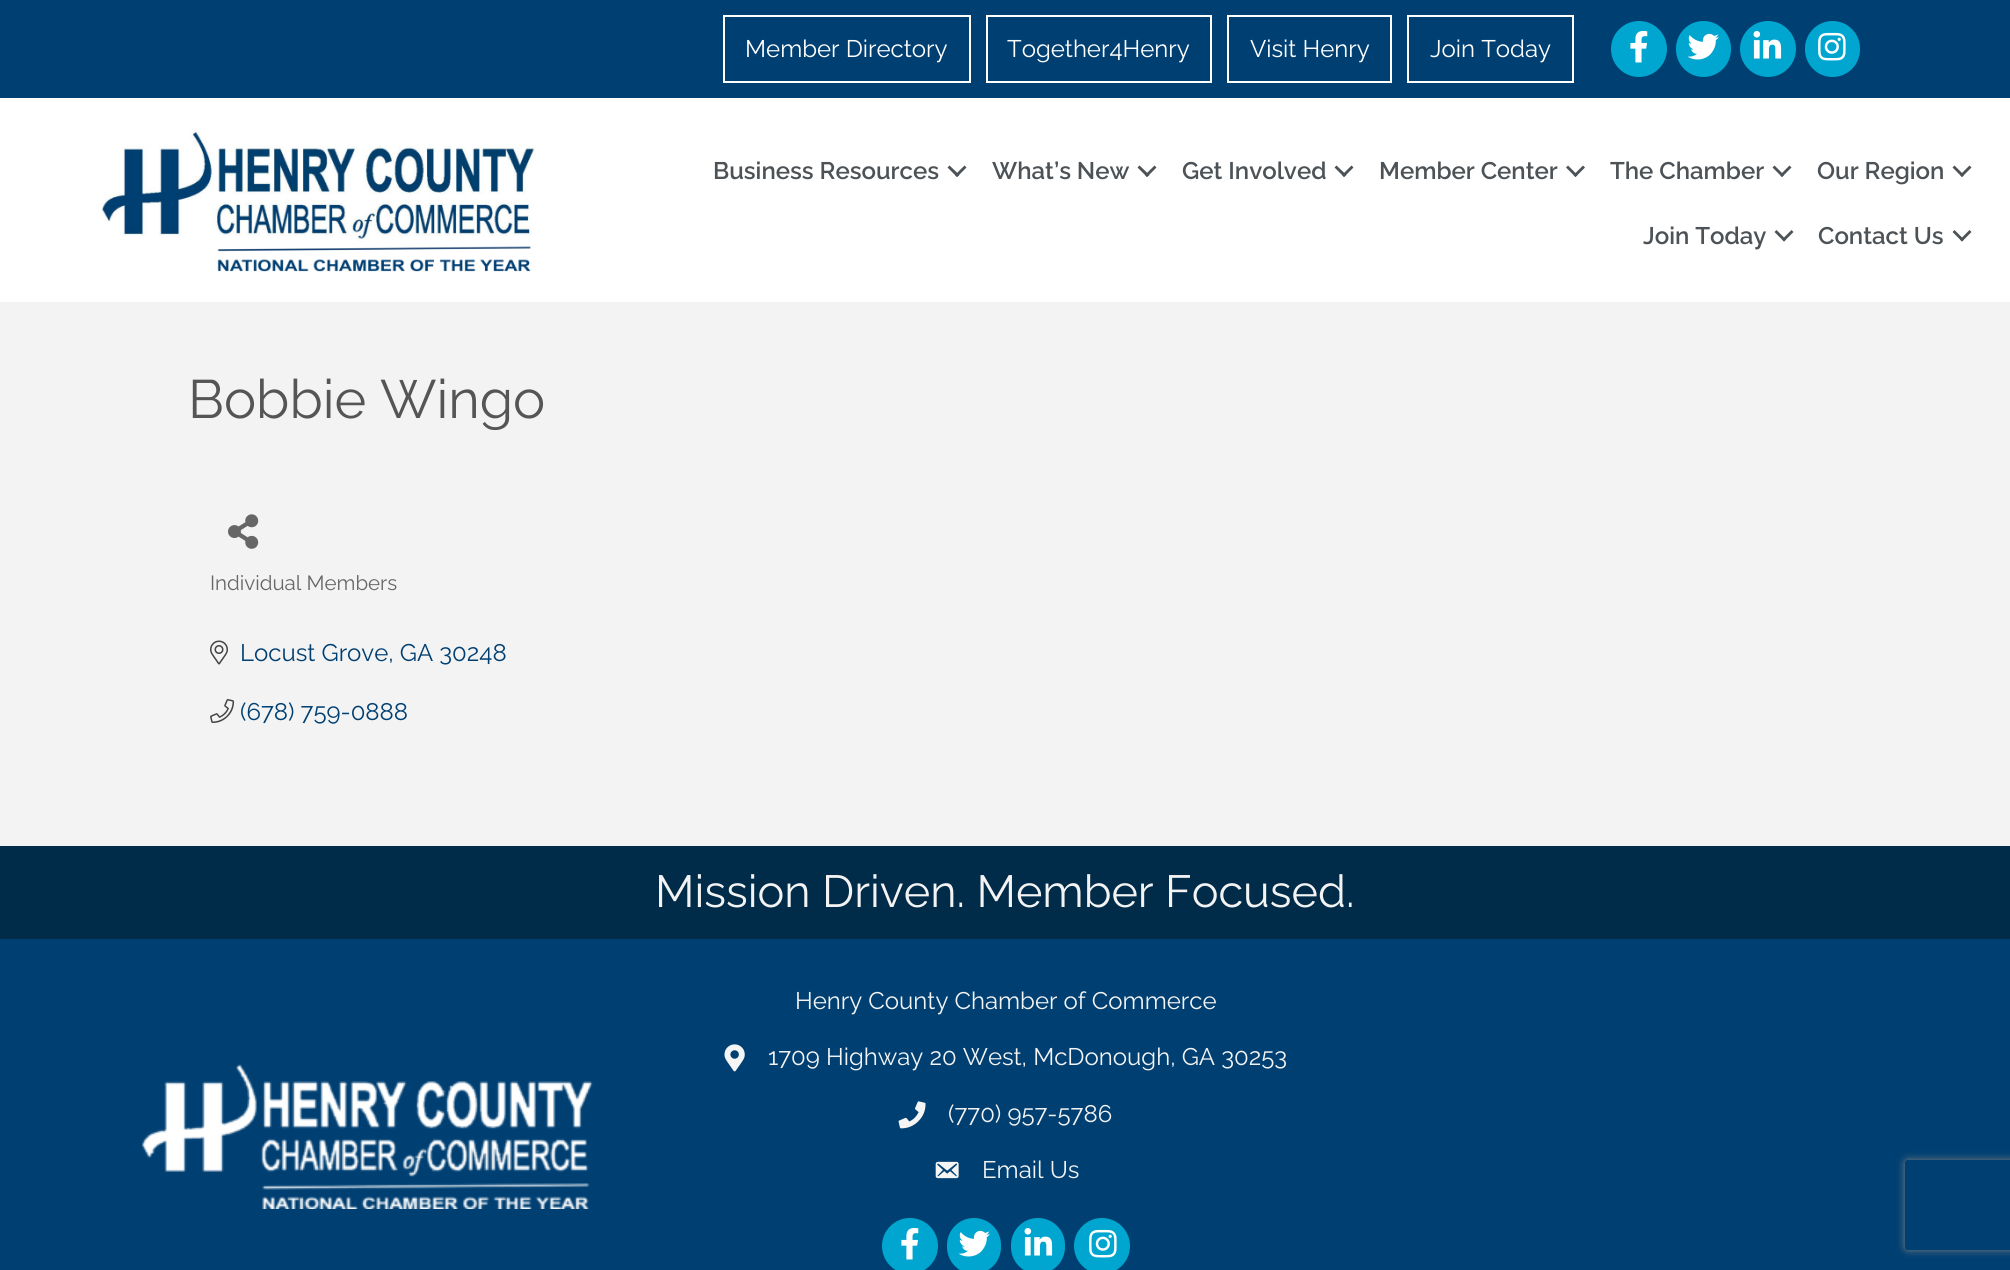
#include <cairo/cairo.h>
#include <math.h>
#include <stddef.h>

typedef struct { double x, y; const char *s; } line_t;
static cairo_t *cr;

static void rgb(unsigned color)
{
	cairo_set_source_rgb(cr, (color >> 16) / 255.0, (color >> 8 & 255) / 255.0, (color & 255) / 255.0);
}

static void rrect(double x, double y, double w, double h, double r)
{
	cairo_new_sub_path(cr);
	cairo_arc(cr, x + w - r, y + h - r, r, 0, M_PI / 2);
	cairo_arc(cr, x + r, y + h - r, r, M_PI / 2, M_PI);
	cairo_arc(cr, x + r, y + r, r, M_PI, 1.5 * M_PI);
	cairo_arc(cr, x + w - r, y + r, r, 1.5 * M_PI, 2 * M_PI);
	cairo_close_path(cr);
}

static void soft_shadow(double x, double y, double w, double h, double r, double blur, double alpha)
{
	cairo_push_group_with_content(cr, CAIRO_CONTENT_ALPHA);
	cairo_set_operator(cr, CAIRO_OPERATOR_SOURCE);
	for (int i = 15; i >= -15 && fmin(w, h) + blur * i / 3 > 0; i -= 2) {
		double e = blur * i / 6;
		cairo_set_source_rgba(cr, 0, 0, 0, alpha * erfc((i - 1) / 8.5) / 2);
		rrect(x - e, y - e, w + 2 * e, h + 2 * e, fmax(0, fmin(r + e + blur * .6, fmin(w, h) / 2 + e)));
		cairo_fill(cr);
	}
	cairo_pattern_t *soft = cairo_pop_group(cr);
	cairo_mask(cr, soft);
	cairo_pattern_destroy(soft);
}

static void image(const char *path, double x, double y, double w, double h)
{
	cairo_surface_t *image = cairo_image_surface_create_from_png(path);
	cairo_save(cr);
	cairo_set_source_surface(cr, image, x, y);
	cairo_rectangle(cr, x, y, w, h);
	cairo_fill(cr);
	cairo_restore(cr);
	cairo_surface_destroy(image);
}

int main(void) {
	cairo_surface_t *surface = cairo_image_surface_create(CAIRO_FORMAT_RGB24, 2010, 1270);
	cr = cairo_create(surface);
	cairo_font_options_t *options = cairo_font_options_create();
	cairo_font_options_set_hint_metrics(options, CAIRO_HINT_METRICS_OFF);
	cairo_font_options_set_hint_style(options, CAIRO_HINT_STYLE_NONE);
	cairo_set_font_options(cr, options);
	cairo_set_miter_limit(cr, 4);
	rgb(0xffffff);
	cairo_paint(cr);
	rgb(0x003f72);
	cairo_rectangle(cr, 0, 0, 2010, 98);
	cairo_fill(cr);
	cairo_rectangle(cr, 724, 16, 246, 66);
	rgb(0xffffff);
	cairo_stroke(cr);
	cairo_rectangle(cr, 987, 16, 224, 66);
	cairo_stroke(cr);
	cairo_rectangle(cr, 1228, 16, 163, 66);
	cairo_stroke(cr);
	cairo_rectangle(cr, 1408, 16, 165, 66);
	cairo_stroke(cr);
	rgb(0x00a6cf);
	cairo_arc(cr, 1639, 49, 28, 0, 2 * M_PI);
	cairo_fill(cr);
	image("img/1.png", 1630, 30, 18, 33);
	rrect(1676, 21, 55, 56, 27.5);
	cairo_fill(cr);
	image("img/2.png", 1687, 33, 32, 27);
	cairo_arc(cr, 1768, 49, 28, 0, 2 * M_PI);
	cairo_fill(cr);
	image("img/3.png", 1753, 31, 29, 28);
	rrect(1805, 21, 55, 56, 27.5);
	cairo_fill(cr);
	image("img/4.png", 1818, 32, 28, 29);
	image("img/5.png", 99, 127, 438, 145);
	rgb(0x4c5256);
	cairo_new_path(cr);
	cairo_move_to(cr, 964.5, 165.5);
	cairo_line_to(cr, 966.5, 167.5);
	cairo_line_to(cr, 957, 177);
	cairo_line_to(cr, 955, 175);
	cairo_close_path(cr);
	cairo_fill(cr);
	cairo_new_path(cr);
	cairo_move_to(cr, 949.5, 165.5);
	cairo_line_to(cr, 959.5, 175);
	cairo_line_to(cr, 957, 177);
	cairo_line_to(cr, 947.5, 167.5);
	cairo_close_path(cr);
	cairo_fill(cr);
	cairo_new_path(cr);
	cairo_move_to(cr, 1154.5, 165.5);
	cairo_line_to(cr, 1156.5, 167.5);
	cairo_line_to(cr, 1147, 177);
	cairo_line_to(cr, 1145, 175);
	cairo_close_path(cr);
	cairo_fill(cr);
	cairo_new_path(cr);
	cairo_move_to(cr, 1139.5, 165.5);
	cairo_line_to(cr, 1149.5, 175);
	cairo_line_to(cr, 1147, 177);
	cairo_line_to(cr, 1137.5, 167.5);
	cairo_close_path(cr);
	cairo_fill(cr);
	cairo_new_path(cr);
	cairo_move_to(cr, 1351.5, 165.5);
	cairo_line_to(cr, 1353.5, 167.5);
	cairo_line_to(cr, 1344, 177);
	cairo_line_to(cr, 1342, 175);
	cairo_close_path(cr);
	cairo_fill(cr);
	cairo_new_path(cr);
	cairo_move_to(cr, 1336.5, 165.5);
	cairo_line_to(cr, 1346.5, 175);
	cairo_line_to(cr, 1344, 177);
	cairo_line_to(cr, 1334.5, 167.5);
	cairo_close_path(cr);
	cairo_fill(cr);
	cairo_new_path(cr);
	cairo_move_to(cr, 1583, 165.5);
	cairo_line_to(cr, 1585, 167.5);
	cairo_line_to(cr, 1575.5, 177);
	cairo_line_to(cr, 1573.5, 175);
	cairo_close_path(cr);
	cairo_fill(cr);
	cairo_new_path(cr);
	cairo_move_to(cr, 1568, 165.5);
	cairo_line_to(cr, 1577.5, 175);
	cairo_line_to(cr, 1575.5, 177);
	cairo_line_to(cr, 1566, 167.5);
	cairo_close_path(cr);
	cairo_fill(cr);
	cairo_new_path(cr);
	cairo_move_to(cr, 1789.5, 165.5);
	cairo_line_to(cr, 1791.5, 167.5);
	cairo_line_to(cr, 1782, 177);
	cairo_line_to(cr, 1780, 175);
	cairo_close_path(cr);
	cairo_fill(cr);
	cairo_new_path(cr);
	cairo_move_to(cr, 1774.5, 165.5);
	cairo_line_to(cr, 1784, 175);
	cairo_line_to(cr, 1782, 177);
	cairo_line_to(cr, 1772.5, 167.5);
	cairo_close_path(cr);
	cairo_fill(cr);
	cairo_new_path(cr);
	cairo_move_to(cr, 1969.5, 165.5);
	cairo_line_to(cr, 1971.5, 167.5);
	cairo_line_to(cr, 1962, 177);
	cairo_line_to(cr, 1960, 175);
	cairo_close_path(cr);
	cairo_fill(cr);
	cairo_new_path(cr);
	cairo_move_to(cr, 1954.5, 165.5);
	cairo_line_to(cr, 1964, 175);
	cairo_line_to(cr, 1962, 177);
	cairo_line_to(cr, 1952.5, 167.5);
	cairo_close_path(cr);
	cairo_fill(cr);
	cairo_new_path(cr);
	cairo_move_to(cr, 1791.5, 230);
	cairo_line_to(cr, 1793.5, 232);
	cairo_line_to(cr, 1784, 241.5);
	cairo_line_to(cr, 1782, 239.5);
	cairo_close_path(cr);
	cairo_fill(cr);
	cairo_new_path(cr);
	cairo_move_to(cr, 1776.5, 230);
	cairo_line_to(cr, 1786, 239.5);
	cairo_line_to(cr, 1784, 241.5);
	cairo_line_to(cr, 1774.5, 232);
	cairo_close_path(cr);
	cairo_fill(cr);
	cairo_new_path(cr);
	cairo_move_to(cr, 1969.5, 230);
	cairo_line_to(cr, 1971.5, 232);
	cairo_line_to(cr, 1962, 241.5);
	cairo_line_to(cr, 1960, 239.5);
	cairo_close_path(cr);
	cairo_fill(cr);
	cairo_new_path(cr);
	cairo_move_to(cr, 1954.5, 230);
	cairo_line_to(cr, 1964, 239.5);
	cairo_line_to(cr, 1962, 241.5);
	cairo_line_to(cr, 1952.5, 232);
	cairo_close_path(cr);
	cairo_fill(cr);
	rgb(0xf3f3f3);
	cairo_rectangle(cr, 0, 302, 2010, 544);
	cairo_fill(cr);
	image("img/6.png", 228, 514, 31, 35);
	image("img/7.png", 210, 640, 18, 25);
	image("img/8.png", 210, 699, 25, 24);
	rgb(0x002b49);
	cairo_rectangle(cr, 0, 846, 2010, 93);
	cairo_fill(cr);
	rgb(0x003f72);
	cairo_rectangle(cr, 0, 939, 2010, 331);
	cairo_fill(cr);
	image("img/9.png", 142, 1064, 451, 145);
	image("img/10.png", 724, 1044, 21, 28);
	image("img/11.png", 898, 1101, 28, 28);
	image("img/12.png", 935, 1161, 24, 18);
	rgb(0x00a6cf);
	cairo_arc(cr, 910, 1246, 28, 0, 2 * M_PI);
	cairo_fill(cr);
	image("img/1.png", 901, 1227, 18, 33);
	rrect(947, 1218, 54, 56, 27);
	cairo_fill(cr);
	image("img/2.png", 958, 1230, 32, 27);
	rrect(1011, 1218, 54, 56, 27);
	cairo_fill(cr);
	image("img/3.png", 1024, 1228, 29, 28);
	cairo_arc(cr, 1102, 1246, 28, 0, 2 * M_PI);
	cairo_fill(cr);
	image("img/4.png", 1089, 1229, 28, 29);
	cairo_save(cr);
	cairo_set_fill_rule(cr, CAIRO_FILL_RULE_EVEN_ODD);
	cairo_new_path(cr);
	cairo_move_to(cr, 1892, 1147);
	cairo_line_to(cr, 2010, 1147);
	cairo_line_to(cr, 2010, 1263);
	cairo_line_to(cr, 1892, 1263);
	cairo_close_path(cr);
	cairo_move_to(cr, 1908, 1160);
	cairo_line_to(cr, 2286, 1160);
	cairo_curve_to(cr, 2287.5, 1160, 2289, 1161.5, 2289, 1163);
	cairo_line_to(cr, 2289, 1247);
	cairo_curve_to(cr, 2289, 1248.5, 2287.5, 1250, 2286, 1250);
	cairo_line_to(cr, 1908, 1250);
	cairo_curve_to(cr, 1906.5, 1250, 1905, 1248.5, 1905, 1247);
	cairo_line_to(cr, 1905, 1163);
	cairo_curve_to(cr, 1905, 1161.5, 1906.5, 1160, 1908, 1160);
	cairo_close_path(cr);
	cairo_clip(cr);
	rgb(0x808080);
	soft_shadow(1905, 1160, 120, 90, 3, 4, 1);
	cairo_restore(cr);
	cairo_select_font_face(cr, "Raleway", CAIRO_FONT_SLANT_NORMAL, CAIRO_FONT_WEIGHT_NORMAL);
	cairo_set_font_size(cr, 24);
	rgb(0xffffff);
	{
		static const line_t items[] = {
			{745, 57, "Member Directory"},
			{1007, 57, "Together4Henry"},
			{1250, 57, "Visit Henry"},
			{1430, 57, "Join Today"},
		};
		for (size_t i = 0; i < sizeof items / sizeof *items; i++) {
			cairo_move_to(cr, items[i].x, items[i].y);
			cairo_show_text(cr, items[i].s);
		}
	}
	cairo_select_font_face(cr, "Raleway SemiBold", CAIRO_FONT_SLANT_NORMAL, CAIRO_FONT_WEIGHT_NORMAL);
	rgb(0x4c5256);
	{
		static const line_t items[] = {
			{713, 179, "Business Resources"},
			{992, 179, "What’s New"},
			{1182, 179, "Get Involved"},
			{1379, 179, "Member Center"},
			{1610, 179, "The Chamber"},
			{1817, 179, "Our Region"},
			{1643, 244, "Join Today"},
			{1818, 244, "Contact Us"},
		};
		for (size_t i = 0; i < sizeof items / sizeof *items; i++) {
			cairo_move_to(cr, items[i].x, items[i].y);
			cairo_show_text(cr, items[i].s);
		}
	}
	cairo_select_font_face(cr, "Raleway", CAIRO_FONT_SLANT_NORMAL, CAIRO_FONT_WEIGHT_NORMAL);
	cairo_set_font_size(cr, 54);
	rgb(0x555555);
	cairo_move_to(cr, 188, 418);
	cairo_show_text(cr, "Bobbie Wingo");
	cairo_set_font_size(cr, 20.5);
	rgb(0x676767);
	cairo_move_to(cr, 210, 590);
	cairo_show_text(cr, "Individual Members");
	cairo_set_font_size(cr, 24);
	rgb(0x003f72);
	cairo_move_to(cr, 240, 661);
	cairo_show_text(cr, "Locust Grove, GA 30248");
	cairo_move_to(cr, 240, 720);
	cairo_show_text(cr, "(678) 759-0888");
	cairo_set_font_size(cr, 45);
	rgb(0xf3f3f3);
	cairo_move_to(cr, 655, 907);
	cairo_show_text(cr, "Mission Driven. Member Focused.");
	cairo_set_font_size(cr, 24);
	{
		static const line_t items[] = {
			{795, 1009, "Henry County Chamber of Commerce"},
			{768, 1065, "1709 Highway 20 West, McDonough, GA 30253"},
			{948, 1122, "(770) 957-5786"},
			{982, 1178, "Email Us"},
		};
		for (size_t i = 0; i < sizeof items / sizeof *items; i++) {
			cairo_move_to(cr, items[i].x, items[i].y);
			cairo_show_text(cr, items[i].s);
		}
	}
	cairo_surface_write_to_png(surface, "page.png");
	cairo_font_options_destroy(options);
	cairo_destroy(cr);
	cairo_surface_destroy(surface);
	return 0;
}
